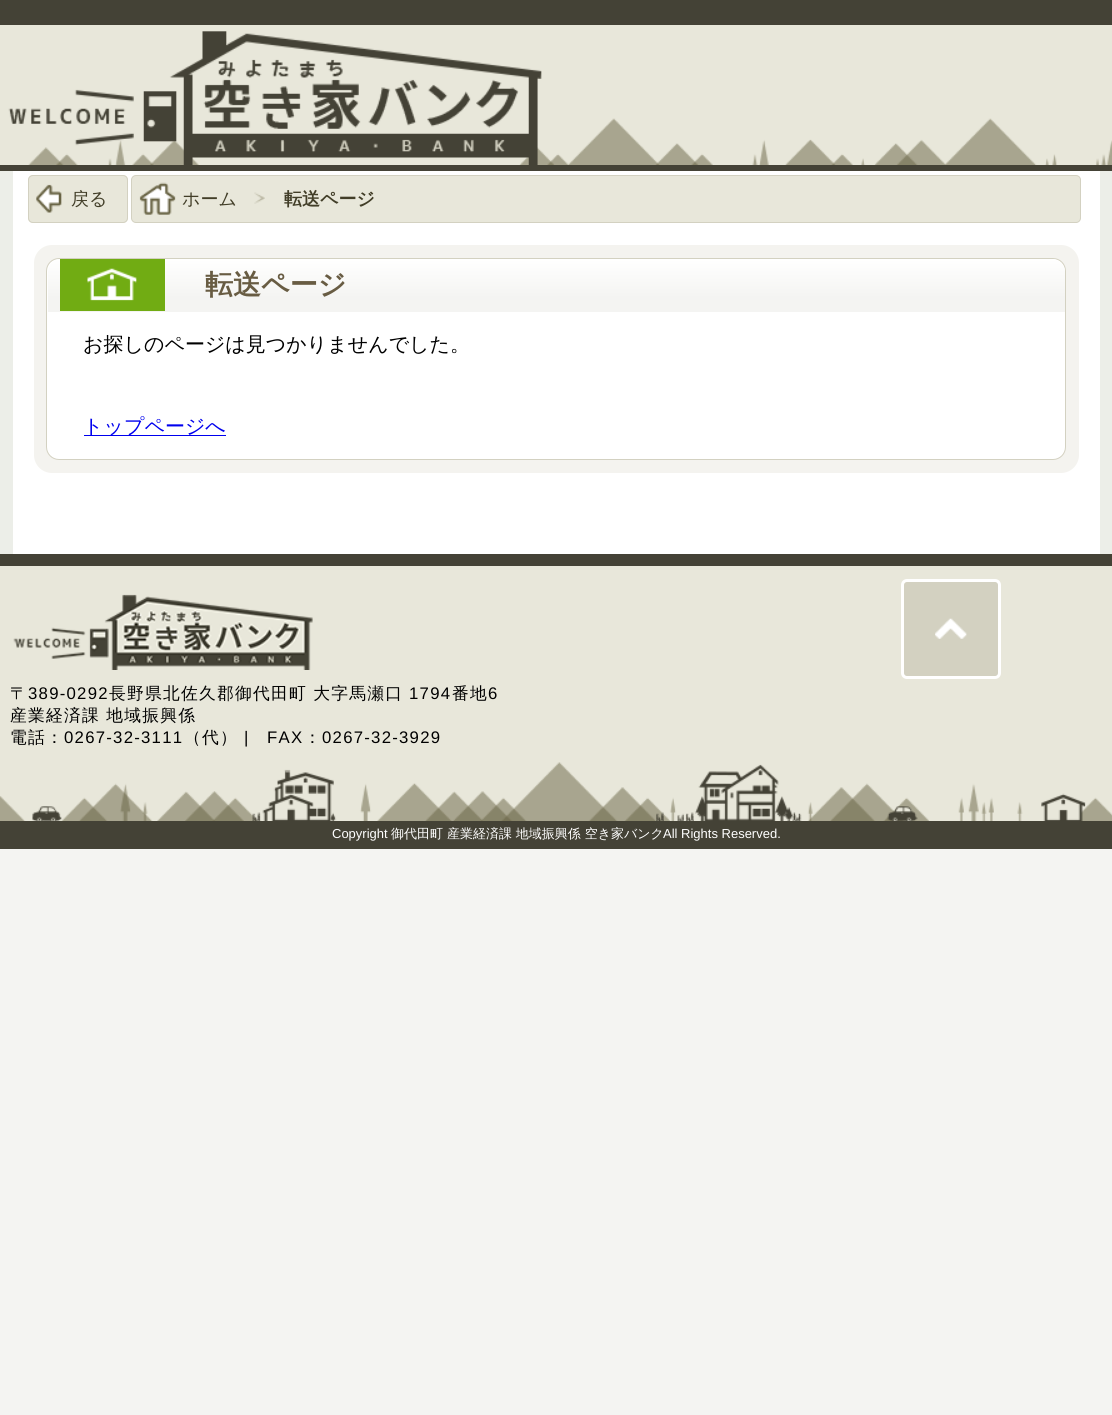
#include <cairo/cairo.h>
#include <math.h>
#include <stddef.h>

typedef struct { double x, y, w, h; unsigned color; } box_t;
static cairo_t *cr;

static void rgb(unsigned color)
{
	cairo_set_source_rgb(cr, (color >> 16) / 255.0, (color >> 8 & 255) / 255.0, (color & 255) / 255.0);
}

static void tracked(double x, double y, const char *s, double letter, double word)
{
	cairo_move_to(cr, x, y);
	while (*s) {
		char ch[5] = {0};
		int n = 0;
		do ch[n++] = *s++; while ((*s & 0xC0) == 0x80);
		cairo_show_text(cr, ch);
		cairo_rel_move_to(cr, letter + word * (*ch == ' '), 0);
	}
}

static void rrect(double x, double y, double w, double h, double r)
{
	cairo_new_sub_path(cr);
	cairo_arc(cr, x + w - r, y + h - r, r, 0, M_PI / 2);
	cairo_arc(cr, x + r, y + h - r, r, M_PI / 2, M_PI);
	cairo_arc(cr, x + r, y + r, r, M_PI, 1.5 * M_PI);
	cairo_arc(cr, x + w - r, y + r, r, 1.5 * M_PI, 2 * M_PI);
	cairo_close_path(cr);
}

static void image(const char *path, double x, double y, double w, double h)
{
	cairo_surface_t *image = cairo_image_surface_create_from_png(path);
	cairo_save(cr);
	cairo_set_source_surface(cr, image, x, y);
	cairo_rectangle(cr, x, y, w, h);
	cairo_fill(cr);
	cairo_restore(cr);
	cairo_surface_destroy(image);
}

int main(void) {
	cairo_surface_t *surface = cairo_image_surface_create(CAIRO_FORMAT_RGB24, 1112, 1415);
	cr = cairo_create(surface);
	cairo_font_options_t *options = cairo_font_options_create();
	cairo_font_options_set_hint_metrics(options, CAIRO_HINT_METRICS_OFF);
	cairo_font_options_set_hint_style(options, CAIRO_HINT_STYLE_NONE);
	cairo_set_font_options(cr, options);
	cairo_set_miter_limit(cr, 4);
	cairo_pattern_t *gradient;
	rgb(0xf4f4f2);
	cairo_paint(cr);
	rgb(0x444236);
	cairo_rectangle(cr, 0, 0, 1112, 25);
	cairo_fill(cr);
	rgb(0xe8e7da);
	cairo_rectangle(cr, 0, 25, 1112, 140);
	cairo_fill(cr);
	image("img/1.png", 28, 118, 1084, 47);
	rgb(0x444236);
	cairo_rectangle(cr, 0, 165, 1112, 6);
	cairo_fill(cr);
	image("img/2.png", 8, 31, 534, 134);
	rgb(0xeceee8);
	cairo_rectangle(cr, 0, 171, 1112, 383);
	cairo_fill(cr);
	rgb(0xffffff);
	cairo_rectangle(cr, 13, 171, 1087, 383);
	cairo_fill(cr);
	rgb(0xe8e7da);
	rrect(28, 175, 100, 48, 5);
	cairo_fill(cr);
	image("img/3.png", 36, 184, 26, 29);
	rrect(28.5, 175.5, 99, 47, 4.5);
	rgb(0xd3d1c1);
	cairo_set_line_width(cr, 1);
	cairo_stroke(cr);
	rgb(0xe8e7da);
	rrect(131.5, 175.5, 949, 47, 4.5);
	cairo_fill_preserve(cr);
	rgb(0xd3d1c1);
	cairo_stroke(cr);
	image("img/4.png", 139, 182, 37, 33);
	image("img/5.png", 254, 192, 11, 12);
	rgb(0xf4f3ef);
	rrect(34, 245, 1045, 228, 18);
	cairo_fill(cr);
	rgb(0xffffff);
	rrect(46.5, 258.5, 1019, 201, 12.5);
	cairo_fill_preserve(cr);
	rgb(0xd3d1c1);
	cairo_stroke(cr);
	gradient = cairo_pattern_create_linear(556, 259, 556, 311);
	cairo_pattern_add_color_stop_rgba(gradient, 0, 1, 1, 1, 1);
	cairo_pattern_add_color_stop_rgba(gradient, 0.75, 0.957, 0.957, 0.949, 1);
	cairo_set_source(cr, gradient);
	cairo_pattern_destroy(gradient);
	cairo_new_path(cr);
	cairo_move_to(cr, 61, 259);
	cairo_line_to(cr, 1052, 259);
	cairo_curve_to(cr, 1059, 259, 1065, 265, 1065, 272);
	cairo_line_to(cr, 1065, 311);
	cairo_line_to(cr, 48, 311);
	cairo_line_to(cr, 48, 272);
	cairo_curve_to(cr, 48, 265, 54, 259, 61, 259);
	cairo_close_path(cr);
	cairo_fill(cr);
	rgb(0xf4f4f2);
	cairo_rectangle(cr, 48, 311, 1017, 1);
	cairo_fill(cr);
	rgb(0x71ac13);
	cairo_rectangle(cr, 60, 259, 105, 52);
	cairo_fill(cr);
	image("img/6.png", 87, 268, 50, 33);
	{
		static const box_t items[] = {
			{84, 435, 142, 1, 0x0000ee},
			{0, 566, 1112, 255, 0xe8e7da},
			{0, 554, 1112, 12, 0x444236},
		};
		for (size_t i = 0; i < sizeof items / sizeof *items; i++) {
			rgb(items[i].color);
			cairo_rectangle(cr, items[i].x, items[i].y, items[i].w, items[i].h);
			cairo_fill(cr);
		}
	}
	image("img/7.png", 0, 762, 1112, 59);
	rgb(0xd3d1c1);
	rrect(902.5, 580.5, 97, 97, 4.5);
	cairo_fill_preserve(cr);
	rgb(0xffffff);
	cairo_set_line_width(cr, 3);
	cairo_stroke(cr);
	image("img/8.png", 935, 618, 32, 21);
	image("img/9.png", 13, 594, 300, 76);
	rgb(0x444236);
	cairo_rectangle(cr, 0, 821, 1112, 28);
	cairo_fill(cr);
	cairo_select_font_face(cr, "WenQuanYi Zen Hei Medium", CAIRO_FONT_SLANT_NORMAL, CAIRO_FONT_WEIGHT_NORMAL);
	cairo_set_font_size(cr, 18);
	rgb(0x423e28);
	cairo_move_to(cr, 71, 205);
	cairo_show_text(cr, "戻る");
	cairo_move_to(cr, 182, 205);
	cairo_show_text(cr, "ホーム");
	cairo_select_font_face(cr, "WenQuanYi Zen Hei", CAIRO_FONT_SLANT_NORMAL, CAIRO_FONT_WEIGHT_BOLD);
	cairo_move_to(cr, 284, 205);
	cairo_show_text(cr, "転送ページ");
	cairo_set_font_size(cr, 28);
	rgb(0x685c43);
	cairo_move_to(cr, 205, 294);
	cairo_show_text(cr, "転送ページ");
	cairo_select_font_face(cr, "WenQuanYi Zen Hei Medium", CAIRO_FONT_SLANT_NORMAL, CAIRO_FONT_WEIGHT_NORMAL);
	cairo_set_font_size(cr, 20);
	rgb(0x000000);
	cairo_move_to(cr, 83, 351);
	cairo_show_text(cr, "お探しのページは見つかりませんでした。");
	rgb(0x0000ee);
	cairo_move_to(cr, 83, 433);
	cairo_show_text(cr, "トップページへ");
	cairo_set_font_size(cr, 16.75);
	rgb(0x000000);
	tracked(10, 699, "〒", 1.25, 0);
	cairo_select_font_face(cr, "Liberation Sans", CAIRO_FONT_SLANT_NORMAL, CAIRO_FONT_WEIGHT_NORMAL);
	tracked(28, 699, "389-0292", 1.25, 0);
	cairo_select_font_face(cr, "WenQuanYi Zen Hei Medium", CAIRO_FONT_SLANT_NORMAL, CAIRO_FONT_WEIGHT_NORMAL);
	tracked(109, 699, "長野県北佐久郡御代田町 大字馬瀬口", 1.25, 0);
	cairo_select_font_face(cr, "Liberation Sans", CAIRO_FONT_SLANT_NORMAL, CAIRO_FONT_WEIGHT_NORMAL);
	tracked(409, 699, "1794", 1.25, 0);
	cairo_select_font_face(cr, "WenQuanYi Zen Hei Medium", CAIRO_FONT_SLANT_NORMAL, CAIRO_FONT_WEIGHT_NORMAL);
	tracked(452, 699, "番地", 1.25, 0);
	cairo_select_font_face(cr, "Liberation Sans", CAIRO_FONT_SLANT_NORMAL, CAIRO_FONT_WEIGHT_NORMAL);
	tracked(488, 699, "6", 1.25, 0);
	cairo_select_font_face(cr, "WenQuanYi Zen Hei Medium", CAIRO_FONT_SLANT_NORMAL, CAIRO_FONT_WEIGHT_NORMAL);
	tracked(10, 721, "産業経済課 地域振興係", 1.25, 0);
	tracked(10, 743, "電話：", 1.25, 0);
	cairo_select_font_face(cr, "Liberation Sans", CAIRO_FONT_SLANT_NORMAL, CAIRO_FONT_WEIGHT_NORMAL);
	tracked(64, 743, "0267-32-3111", 1.25, 0);
	cairo_select_font_face(cr, "WenQuanYi Zen Hei Medium", CAIRO_FONT_SLANT_NORMAL, CAIRO_FONT_WEIGHT_NORMAL);
	tracked(184, 743, "（代）", 1.25, 0);
	cairo_select_font_face(cr, "Liberation Sans", CAIRO_FONT_SLANT_NORMAL, CAIRO_FONT_WEIGHT_NORMAL);
	tracked(244, 743, "|", 1.25, 0);
	tracked(267, 743, "FAX", 1.25, 0);
	cairo_select_font_face(cr, "WenQuanYi Zen Hei Medium", CAIRO_FONT_SLANT_NORMAL, CAIRO_FONT_WEIGHT_NORMAL);
	tracked(304, 743, "：", 1.25, 0);
	cairo_select_font_face(cr, "Liberation Sans", CAIRO_FONT_SLANT_NORMAL, CAIRO_FONT_WEIGHT_NORMAL);
	tracked(322, 743, "0267-32-3929", 1.25, 0);
	cairo_set_font_size(cr, 13);
	rgb(0xffffff);
	cairo_move_to(cr, 332, 838);
	cairo_show_text(cr, "Copyright");
	cairo_select_font_face(cr, "WenQuanYi Zen Hei Medium", CAIRO_FONT_SLANT_NORMAL, CAIRO_FONT_WEIGHT_NORMAL);
	cairo_move_to(cr, 391, 838);
	cairo_show_text(cr, "御代田町 産業経済課 地域振興係 空き家バンク");
	cairo_select_font_face(cr, "Liberation Sans", CAIRO_FONT_SLANT_NORMAL, CAIRO_FONT_WEIGHT_NORMAL);
	cairo_move_to(cr, 663, 838);
	cairo_show_text(cr, "All Rights Reserved.");
	cairo_surface_write_to_png(surface, "page.png");
	cairo_font_options_destroy(options);
	cairo_destroy(cr);
	cairo_surface_destroy(surface);
	return 0;
}
